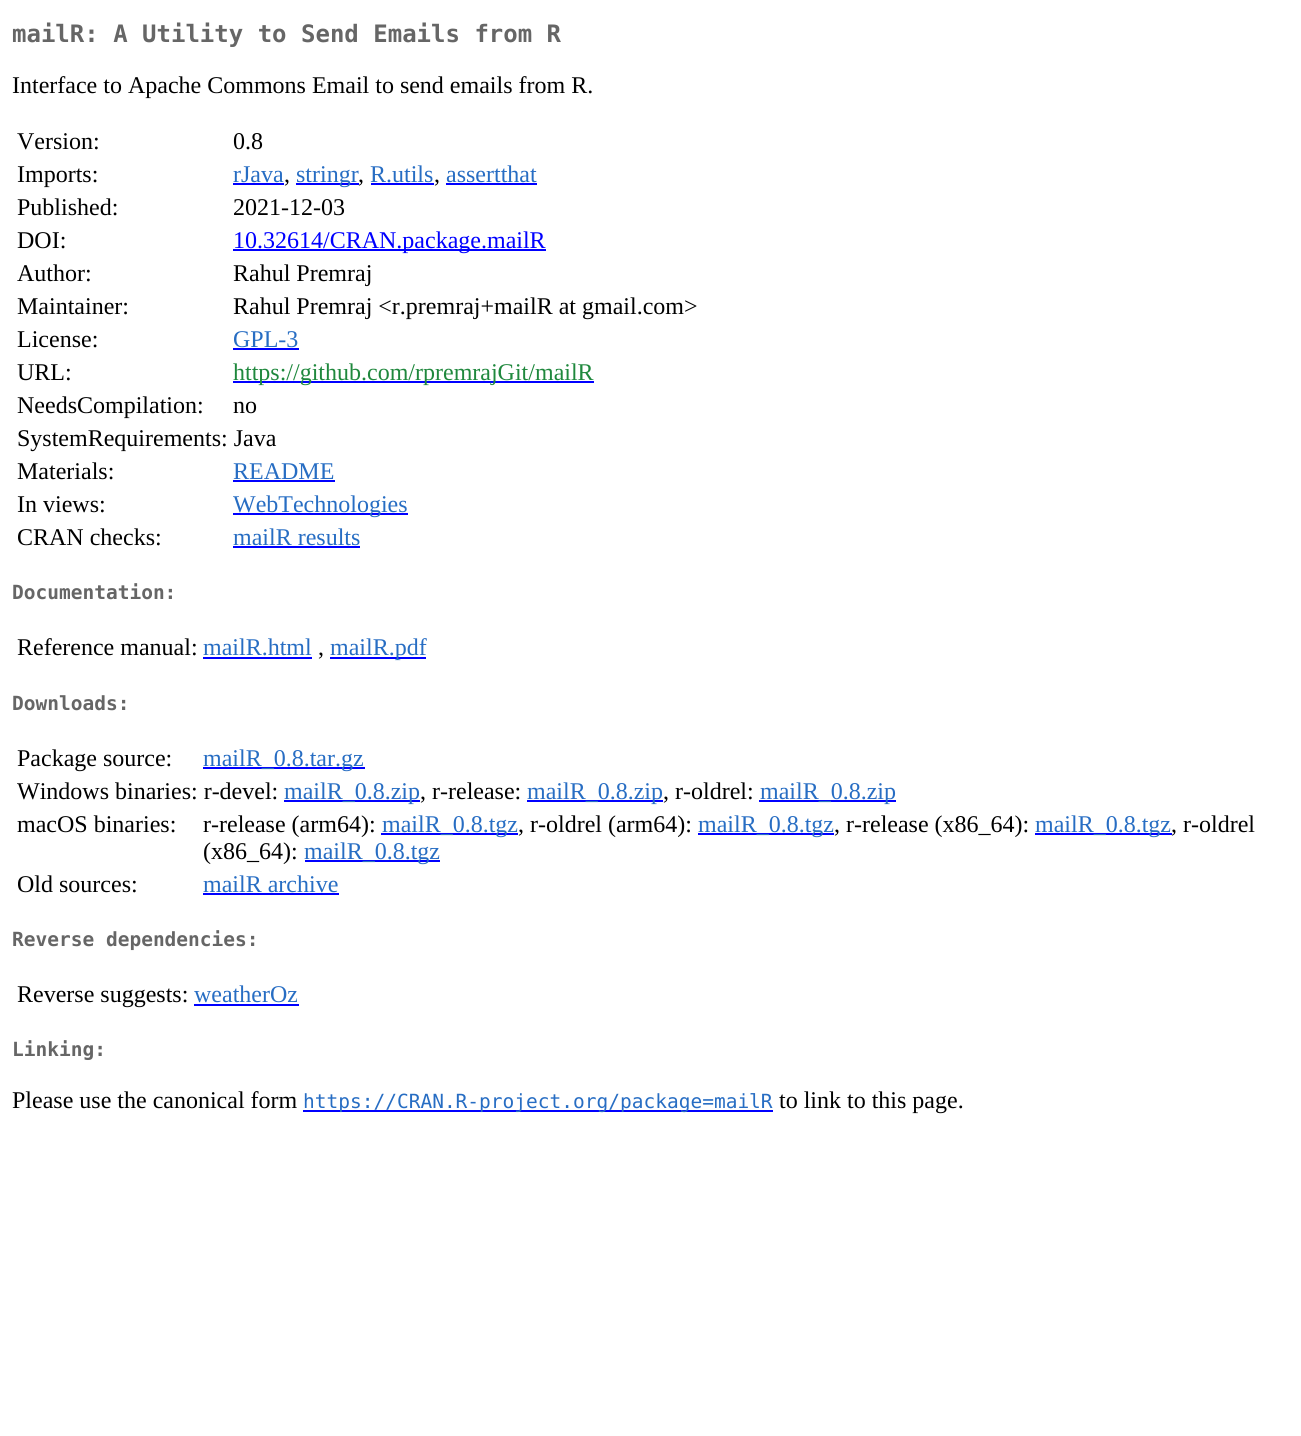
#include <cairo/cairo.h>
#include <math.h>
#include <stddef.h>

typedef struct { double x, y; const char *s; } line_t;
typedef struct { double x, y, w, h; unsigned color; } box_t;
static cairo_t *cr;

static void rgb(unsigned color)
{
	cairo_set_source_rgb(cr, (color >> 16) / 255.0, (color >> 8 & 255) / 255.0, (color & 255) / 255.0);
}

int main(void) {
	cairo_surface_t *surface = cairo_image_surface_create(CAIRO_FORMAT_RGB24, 1301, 1436);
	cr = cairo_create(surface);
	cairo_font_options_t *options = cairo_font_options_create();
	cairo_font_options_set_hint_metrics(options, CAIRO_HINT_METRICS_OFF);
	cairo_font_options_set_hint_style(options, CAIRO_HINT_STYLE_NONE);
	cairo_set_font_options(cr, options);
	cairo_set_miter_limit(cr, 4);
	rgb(0xffffff);
	cairo_paint(cr);
	{
		static const box_t items[] = {
			{233, 183, 51, 2, 0x0000ff},
			{296, 183, 63, 2, 0x0000ff},
			{371, 183, 63, 2, 0x0000ff},
			{446, 183, 91, 2, 0x0000ff},
			{233, 249, 313, 2, 0x0000ff},
			{233, 348, 66, 2, 0x0000ff},
			{233, 381, 361, 2, 0x0000ff},
			{233, 480, 102, 2, 0x0000ff},
			{233, 513, 175, 2, 0x0000ff},
			{233, 546, 127, 2, 0x0000ff},
			{203, 657, 109, 2, 0x0000ff},
			{330, 657, 96, 2, 0x0000ff},
			{203, 767, 162, 2, 0x0000ff},
			{284, 800, 136, 2, 0x0000ff},
			{527, 800, 136, 2, 0x0000ff},
			{759, 800, 137, 2, 0x0000ff},
			{381, 833, 137, 2, 0x0000ff},
			{698, 833, 136, 2, 0x0000ff},
			{1035, 833, 137, 2, 0x0000ff},
			{305, 860, 135, 2, 0x0000ff},
			{203, 893, 136, 2, 0x0000ff},
			{194, 1004, 105, 2, 0x0000ff},
			{303, 1110, 470, 2, 0x0000ff},
		};
		for (size_t i = 0; i < sizeof items / sizeof *items; i++) {
			rgb(items[i].color);
			cairo_rectangle(cr, items[i].x, items[i].y, items[i].w, items[i].h);
			cairo_fill(cr);
		}
	}
	cairo_select_font_face(cr, "DejaVu Sans Mono", CAIRO_FONT_SLANT_NORMAL, CAIRO_FONT_WEIGHT_BOLD);
	cairo_set_font_size(cr, 24);
	rgb(0x666666);
	cairo_move_to(cr, 12, 42);
	cairo_show_text(cr, "mailR: A Utility to Send Emails from R");
	cairo_select_font_face(cr, "Liberation Serif", CAIRO_FONT_SLANT_NORMAL, CAIRO_FONT_WEIGHT_NORMAL);
	rgb(0x000000);
	{
		static const line_t items[] = {
			{12, 93, "Interface to Apache Commons Email to send emails from R."},
			{17, 149, "Version:"},
			{233, 149, "0.8"},
			{17, 182, "Imports:"},
		};
		for (size_t i = 0; i < sizeof items / sizeof *items; i++) {
			cairo_move_to(cr, items[i].x, items[i].y);
			cairo_show_text(cr, items[i].s);
		}
	}
	rgb(0x276dc3);
	cairo_move_to(cr, 233, 182);
	cairo_show_text(cr, "rJava");
	rgb(0x000000);
	cairo_move_to(cr, 284, 182);
	cairo_show_text(cr, ",");
	rgb(0x276dc3);
	cairo_move_to(cr, 296, 182);
	cairo_show_text(cr, "stringr");
	rgb(0x000000);
	cairo_move_to(cr, 358, 182);
	cairo_show_text(cr, ",");
	rgb(0x276dc3);
	cairo_move_to(cr, 370, 182);
	cairo_show_text(cr, "R.utils");
	rgb(0x000000);
	cairo_move_to(cr, 434, 182);
	cairo_show_text(cr, ",");
	rgb(0x276dc3);
	cairo_move_to(cr, 446, 182);
	cairo_show_text(cr, "assertthat");
	rgb(0x000000);
	{
		static const line_t items[] = {
			{17, 215, "Published:"},
			{233, 215, "2021-12-03"},
			{17, 248, "DOI:"},
		};
		for (size_t i = 0; i < sizeof items / sizeof *items; i++) {
			cairo_move_to(cr, items[i].x, items[i].y);
			cairo_show_text(cr, items[i].s);
		}
	}
	rgb(0x0000ff);
	cairo_move_to(cr, 233, 248);
	cairo_show_text(cr, "10.32614/CRAN.package.mailR");
	rgb(0x000000);
	{
		static const line_t items[] = {
			{17, 281, "Author:"},
			{233, 281, "Rahul Premraj"},
			{17, 314, "Maintainer:"},
			{233, 314, "Rahul Premraj <r.premraj+mailR at gmail.com>"},
			{17, 347, "License:"},
		};
		for (size_t i = 0; i < sizeof items / sizeof *items; i++) {
			cairo_move_to(cr, items[i].x, items[i].y);
			cairo_show_text(cr, items[i].s);
		}
	}
	rgb(0x276dc3);
	cairo_move_to(cr, 233, 347);
	cairo_show_text(cr, "GPL-3");
	rgb(0x000000);
	cairo_move_to(cr, 17, 380);
	cairo_show_text(cr, "URL:");
	rgb(0x1f883d);
	cairo_move_to(cr, 233, 380);
	cairo_show_text(cr, "https://github.com/rpremrajGit/mailR");
	rgb(0x000000);
	{
		static const line_t items[] = {
			{17, 413, "NeedsCompilation:"},
			{233, 413, "no"},
			{17, 446, "SystemRequirements: Java"},
			{17, 479, "Materials:"},
		};
		for (size_t i = 0; i < sizeof items / sizeof *items; i++) {
			cairo_move_to(cr, items[i].x, items[i].y);
			cairo_show_text(cr, items[i].s);
		}
	}
	rgb(0x276dc3);
	cairo_move_to(cr, 233, 479);
	cairo_show_text(cr, "README");
	rgb(0x000000);
	cairo_move_to(cr, 17, 512);
	cairo_show_text(cr, "In views:");
	rgb(0x276dc3);
	cairo_move_to(cr, 233, 512);
	cairo_show_text(cr, "WebTechnologies");
	rgb(0x000000);
	cairo_move_to(cr, 17, 545);
	cairo_show_text(cr, "CRAN checks:");
	rgb(0x276dc3);
	cairo_move_to(cr, 233, 545);
	cairo_show_text(cr, "mailR results");
	cairo_select_font_face(cr, "DejaVu Sans Mono", CAIRO_FONT_SLANT_NORMAL, CAIRO_FONT_WEIGHT_BOLD);
	cairo_set_font_size(cr, 19.5);
	rgb(0x666666);
	cairo_move_to(cr, 12, 599);
	cairo_show_text(cr, "Documentation:");
	cairo_select_font_face(cr, "Liberation Serif", CAIRO_FONT_SLANT_NORMAL, CAIRO_FONT_WEIGHT_NORMAL);
	cairo_set_font_size(cr, 24);
	rgb(0x000000);
	cairo_move_to(cr, 17, 655);
	cairo_show_text(cr, "Reference manual:");
	rgb(0x276dc3);
	cairo_move_to(cr, 203, 655);
	cairo_show_text(cr, "mailR.html");
	rgb(0x000000);
	cairo_move_to(cr, 318, 655);
	cairo_show_text(cr, ",");
	rgb(0x276dc3);
	cairo_move_to(cr, 330, 655);
	cairo_show_text(cr, "mailR.pdf");
	cairo_select_font_face(cr, "DejaVu Sans Mono", CAIRO_FONT_SLANT_NORMAL, CAIRO_FONT_WEIGHT_BOLD);
	cairo_set_font_size(cr, 19.5);
	rgb(0x666666);
	cairo_move_to(cr, 12, 710);
	cairo_show_text(cr, "Downloads:");
	cairo_select_font_face(cr, "Liberation Serif", CAIRO_FONT_SLANT_NORMAL, CAIRO_FONT_WEIGHT_NORMAL);
	cairo_set_font_size(cr, 24);
	rgb(0x000000);
	cairo_move_to(cr, 17, 766);
	cairo_show_text(cr, "Package source:");
	rgb(0x276dc3);
	cairo_move_to(cr, 203, 766);
	cairo_show_text(cr, "mailR_0.8.tar.gz");
	rgb(0x000000);
	cairo_move_to(cr, 17, 799);
	cairo_show_text(cr, "Windows binaries: r-devel:");
	rgb(0x276dc3);
	cairo_move_to(cr, 284, 799);
	cairo_show_text(cr, "mailR_0.8.zip");
	rgb(0x000000);
	cairo_move_to(cr, 420, 799);
	cairo_show_text(cr, ", r-release:");
	rgb(0x276dc3);
	cairo_move_to(cr, 527, 799);
	cairo_show_text(cr, "mailR_0.8.zip");
	rgb(0x000000);
	cairo_move_to(cr, 663, 799);
	cairo_show_text(cr, ", r-oldrel:");
	rgb(0x276dc3);
	cairo_move_to(cr, 760, 799);
	cairo_show_text(cr, "mailR_0.8.zip");
	rgb(0x000000);
	cairo_move_to(cr, 17, 832);
	cairo_show_text(cr, "macOS binaries:");
	cairo_move_to(cr, 203, 832);
	cairo_show_text(cr, "r-release (arm64):");
	rgb(0x276dc3);
	cairo_move_to(cr, 382, 832);
	cairo_show_text(cr, "mailR_0.8.tgz");
	rgb(0x000000);
	cairo_move_to(cr, 518, 832);
	cairo_show_text(cr, ", r-oldrel (arm64):");
	rgb(0x276dc3);
	cairo_move_to(cr, 698, 832);
	cairo_show_text(cr, "mailR_0.8.tgz");
	rgb(0x000000);
	cairo_move_to(cr, 834, 832);
	cairo_show_text(cr, ", r-release (x86_64):");
	rgb(0x276dc3);
	cairo_move_to(cr, 1035, 832);
	cairo_show_text(cr, "mailR_0.8.tgz");
	rgb(0x000000);
	cairo_move_to(cr, 1171, 832);
	cairo_show_text(cr, ", r-oldrel");
	cairo_move_to(cr, 203, 859);
	cairo_show_text(cr, "(x86_64):");
	rgb(0x276dc3);
	cairo_move_to(cr, 304, 859);
	cairo_show_text(cr, "mailR_0.8.tgz");
	rgb(0x000000);
	cairo_move_to(cr, 17, 892);
	cairo_show_text(cr, "Old sources:");
	rgb(0x276dc3);
	cairo_move_to(cr, 203, 892);
	cairo_show_text(cr, "mailR archive");
	cairo_select_font_face(cr, "DejaVu Sans Mono", CAIRO_FONT_SLANT_NORMAL, CAIRO_FONT_WEIGHT_BOLD);
	cairo_set_font_size(cr, 19.5);
	rgb(0x666666);
	cairo_move_to(cr, 12, 946);
	cairo_show_text(cr, "Reverse dependencies:");
	cairo_select_font_face(cr, "Liberation Serif", CAIRO_FONT_SLANT_NORMAL, CAIRO_FONT_WEIGHT_NORMAL);
	cairo_set_font_size(cr, 24);
	rgb(0x000000);
	cairo_move_to(cr, 17, 1002);
	cairo_show_text(cr, "Reverse suggests:");
	rgb(0x276dc3);
	cairo_move_to(cr, 194, 1002);
	cairo_show_text(cr, "weatherOz");
	cairo_select_font_face(cr, "DejaVu Sans Mono", CAIRO_FONT_SLANT_NORMAL, CAIRO_FONT_WEIGHT_BOLD);
	cairo_set_font_size(cr, 19.5);
	rgb(0x666666);
	cairo_move_to(cr, 12, 1056);
	cairo_show_text(cr, "Linking:");
	cairo_select_font_face(cr, "Liberation Serif", CAIRO_FONT_SLANT_NORMAL, CAIRO_FONT_WEIGHT_NORMAL);
	cairo_set_font_size(cr, 24);
	rgb(0x000000);
	cairo_move_to(cr, 12, 1108);
	cairo_show_text(cr, "Please use the canonical form");
	cairo_select_font_face(cr, "DejaVu Sans Mono", CAIRO_FONT_SLANT_NORMAL, CAIRO_FONT_WEIGHT_NORMAL);
	cairo_set_font_size(cr, 19.5);
	rgb(0x276dc3);
	cairo_move_to(cr, 303, 1108);
	cairo_show_text(cr, "https://CRAN.R-project.org/package=mailR");
	cairo_select_font_face(cr, "Liberation Serif", CAIRO_FONT_SLANT_NORMAL, CAIRO_FONT_WEIGHT_NORMAL);
	cairo_set_font_size(cr, 24);
	rgb(0x000000);
	cairo_move_to(cr, 779, 1108);
	cairo_show_text(cr, "to link to this page.");
	cairo_surface_write_to_png(surface, "page.png");
	cairo_font_options_destroy(options);
	cairo_destroy(cr);
	cairo_surface_destroy(surface);
	return 0;
}
